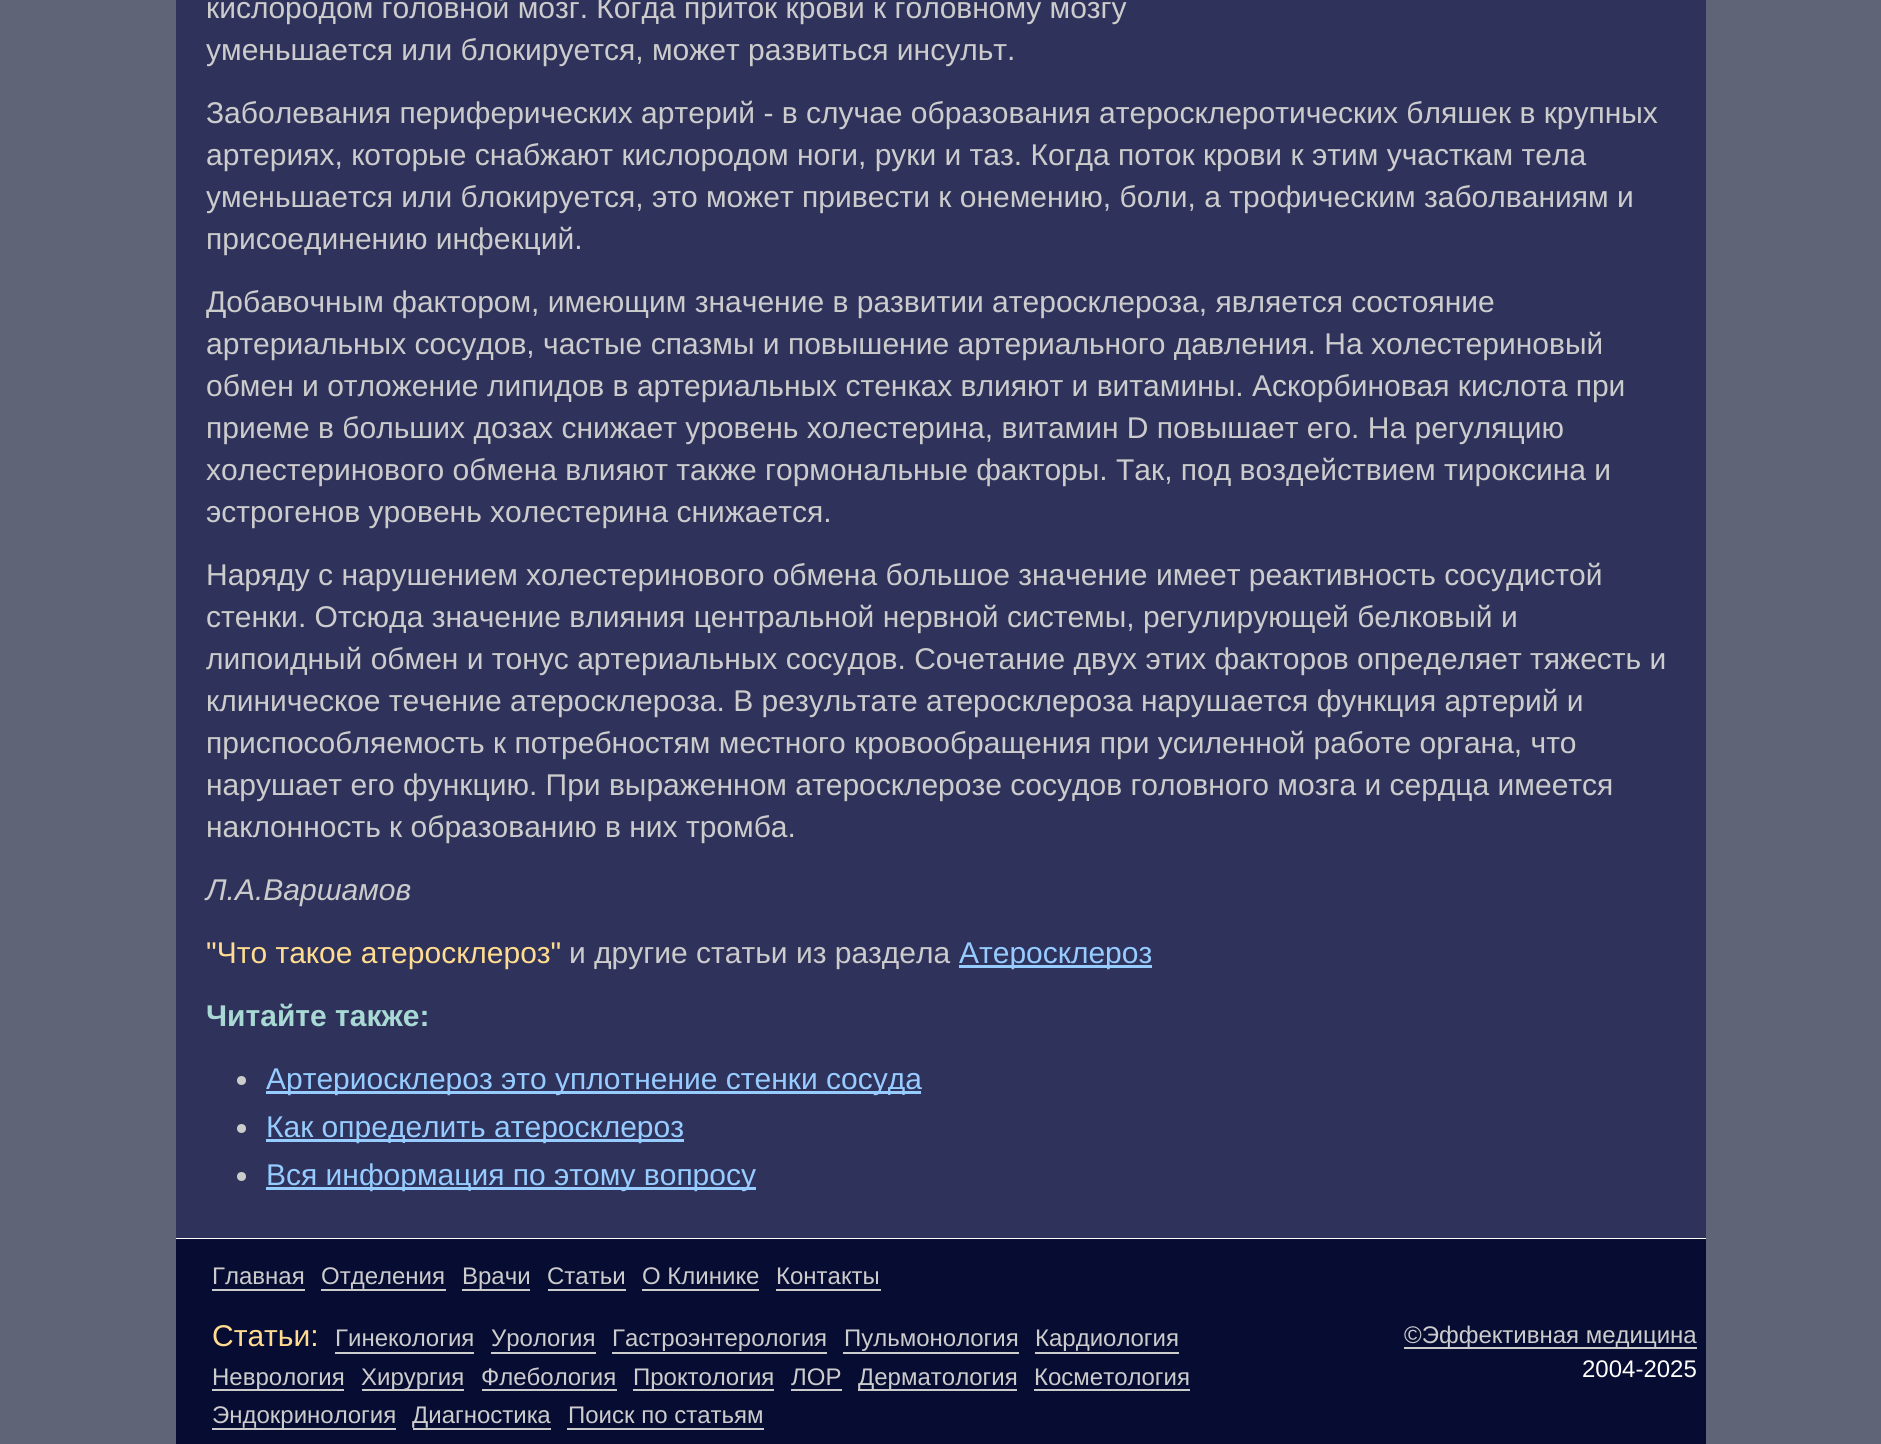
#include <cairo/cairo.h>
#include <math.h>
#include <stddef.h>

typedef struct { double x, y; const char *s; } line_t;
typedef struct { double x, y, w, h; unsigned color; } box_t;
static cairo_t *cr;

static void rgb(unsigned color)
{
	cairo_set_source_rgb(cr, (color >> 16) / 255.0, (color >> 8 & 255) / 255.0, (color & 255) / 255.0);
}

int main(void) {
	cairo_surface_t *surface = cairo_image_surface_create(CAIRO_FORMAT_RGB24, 1881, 1444);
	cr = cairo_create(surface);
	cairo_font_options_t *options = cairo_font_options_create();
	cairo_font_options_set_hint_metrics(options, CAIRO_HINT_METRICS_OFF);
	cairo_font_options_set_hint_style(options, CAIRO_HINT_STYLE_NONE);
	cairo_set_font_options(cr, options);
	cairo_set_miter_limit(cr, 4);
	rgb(0x5f6477);
	cairo_paint(cr);
	rgb(0x2f325b);
	cairo_rectangle(cr, 176, 0, 1530, 1238);
	cairo_fill(cr);
	rgb(0x96ccff);
	cairo_rectangle(cr, 959, 965, 193, 3);
	cairo_fill(cr);
	rgb(0xcccccc);
	cairo_arc(cr, 241.5, 1080.5, 4.5, 0, 2 * M_PI);
	cairo_fill(cr);
	rgb(0x96ccff);
	cairo_rectangle(cr, 266, 1091, 655, 3);
	cairo_fill(cr);
	rgb(0xcccccc);
	cairo_arc(cr, 241.5, 1128.5, 4.5, 0, 2 * M_PI);
	cairo_fill(cr);
	rgb(0x96ccff);
	cairo_rectangle(cr, 266, 1139, 418, 3);
	cairo_fill(cr);
	rgb(0xcccccc);
	cairo_arc(cr, 241.5, 1176.5, 4.5, 0, 2 * M_PI);
	cairo_fill(cr);
	{
		static const box_t items[] = {
			{266, 1187, 490, 3, 0x96ccff},
			{176, 1238, 1530, 1, 0xffffff},
			{176, 1239, 1530, 205, 0x070c32},
			{212, 1289, 93, 2, 0xcccccc},
			{321, 1289, 125, 2, 0xcccccc},
			{462, 1289, 68, 2, 0xcccccc},
			{548, 1289, 78, 2, 0xcccccc},
			{642, 1289, 117, 2, 0xcccccc},
			{776, 1289, 105, 2, 0xcccccc},
			{335, 1352, 139, 2, 0xcccccc},
			{491, 1352, 105, 2, 0xcccccc},
			{612, 1352, 215, 2, 0xcccccc},
			{843, 1352, 176, 2, 0xcccccc},
			{1035, 1352, 144, 2, 0xcccccc},
			{212, 1389, 132, 2, 0xcccccc},
			{362, 1389, 102, 2, 0xcccccc},
			{482, 1389, 135, 2, 0xcccccc},
			{633, 1389, 141, 2, 0xcccccc},
			{791, 1389, 51, 2, 0xcccccc},
			{858, 1389, 159, 2, 0xcccccc},
			{1034, 1389, 156, 2, 0xcccccc},
			{212, 1428, 184, 2, 0xcccccc},
			{413, 1428, 138, 2, 0xcccccc},
			{567, 1428, 197, 2, 0xcccccc},
			{1404, 1347, 293, 2, 0xcccccc},
		};
		for (size_t i = 0; i < sizeof items / sizeof *items; i++) {
			rgb(items[i].color);
			cairo_rectangle(cr, items[i].x, items[i].y, items[i].w, items[i].h);
			cairo_fill(cr);
		}
	}
	cairo_select_font_face(cr, "Liberation Sans", CAIRO_FONT_SLANT_NORMAL, CAIRO_FONT_WEIGHT_NORMAL);
	cairo_set_font_size(cr, 30);
	{
		static const line_t items[] = {
			{206, 18, "кислородом головной мозг. Когда приток крови к головному мозгу"},
			{206, 60, "уменьшается или блокируется, может развиться инсульт."},
			{206, 123, "Заболевания периферических артерий - в случае образования атеросклеротических бляшек в крупных"},
			{206, 165, "артериях, которые снабжают кислородом ноги, руки и таз. Когда поток крови к этим участкам тела"},
			{206, 207, "уменьшается или блокируется, это может привести к онемению, боли, а трофическим заболваниям и"},
			{206, 249, "присоединению инфекций."},
			{206, 312, "Добавочным фактором, имеющим значение в развитии атеросклероза, является состояние"},
			{206, 354, "артериальных сосудов, частые спазмы и повышение артериального давления. На холестериновый"},
			{206, 396, "обмен и отложение липидов в артериальных стенках влияют и витамины. Аскорбиновая кислота при"},
			{206, 438, "приеме в больших дозах снижает уровень холестерина, витамин D повышает его. На регуляцию"},
			{206, 480, "холестеринового обмена влияют также гормональные факторы. Так, под воздействием тироксина и"},
			{206, 522, "эстрогенов уровень холестерина снижается."},
			{206, 585, "Наряду с нарушением холестеринового обмена большое значение имеет реактивность сосудистой"},
			{206, 627, "стенки. Отсюда значение влияния центральной нервной системы, регулирующей белковый и"},
			{206, 669, "липоидный обмен и тонус артериальных сосудов. Сочетание двух этих факторов определяет тяжесть и"},
			{206, 711, "клиническое течение атеросклероза. В результате атеросклероза нарушается функция артерий и"},
			{206, 753, "приспособляемость к потребностям местного кровообращения при усиленной работе органа, что"},
			{206, 795, "нарушает его функцию. При выраженном атеросклерозе сосудов головного мозга и сердца имеется"},
			{206, 837, "наклонность к образованию в них тромба."},
		};
		for (size_t i = 0; i < sizeof items / sizeof *items; i++) {
			cairo_move_to(cr, items[i].x, items[i].y);
			cairo_show_text(cr, items[i].s);
		}
	}
	cairo_select_font_face(cr, "Liberation Sans", CAIRO_FONT_SLANT_ITALIC, CAIRO_FONT_WEIGHT_NORMAL);
	cairo_move_to(cr, 206, 900);
	cairo_show_text(cr, "Л.A.Bapшaмoв");
	cairo_select_font_face(cr, "Liberation Sans", CAIRO_FONT_SLANT_NORMAL, CAIRO_FONT_WEIGHT_NORMAL);
	rgb(0xffdc8f);
	cairo_move_to(cr, 206, 963);
	cairo_show_text(cr, "\"Что такое атеросклероз\"");
	rgb(0xcccccc);
	cairo_move_to(cr, 569, 963);
	cairo_show_text(cr, "и другие статьи из раздела");
	rgb(0x96ccff);
	cairo_move_to(cr, 959, 963);
	cairo_show_text(cr, "Атеросклероз");
	cairo_select_font_face(cr, "Liberation Sans", CAIRO_FONT_SLANT_NORMAL, CAIRO_FONT_WEIGHT_BOLD);
	rgb(0xa8d9d4);
	cairo_move_to(cr, 206, 1026);
	cairo_show_text(cr, "Читайте также:");
	cairo_select_font_face(cr, "Liberation Sans", CAIRO_FONT_SLANT_NORMAL, CAIRO_FONT_WEIGHT_NORMAL);
	rgb(0x96ccff);
	{
		static const line_t items[] = {
			{266, 1089, "Артериосклероз это уплотнение стенки сосуда"},
			{266, 1137, "Как определить атеросклероз"},
			{266, 1185, "Вся информация по этому вопросу"},
		};
		for (size_t i = 0; i < sizeof items / sizeof *items; i++) {
			cairo_move_to(cr, items[i].x, items[i].y);
			cairo_show_text(cr, items[i].s);
		}
	}
	cairo_set_font_size(cr, 24);
	rgb(0xcccccc);
	{
		static const line_t items[] = {
			{212, 1284, "Главная"},
			{321, 1284, "Отделения"},
			{462, 1284, "Врачи"},
			{547, 1284, "Статьи"},
			{642, 1284, "О Клинике"},
			{776, 1284, "Контакты"},
		};
		for (size_t i = 0; i < sizeof items / sizeof *items; i++) {
			cairo_move_to(cr, items[i].x, items[i].y);
			cairo_show_text(cr, items[i].s);
		}
	}
	cairo_set_font_size(cr, 30);
	rgb(0xffdc8f);
	cairo_move_to(cr, 212, 1346);
	cairo_show_text(cr, "Статьи:");
	cairo_set_font_size(cr, 24);
	rgb(0xcccccc);
	{
		static const line_t items[] = {
			{335, 1346, "Гинекология"},
			{491, 1346, "Урология"},
			{612, 1346, "Гастроэнтерология"},
			{844, 1346, "Пульмонология"},
			{1035, 1346, "Кардиология"},
			{212, 1385, "Неврология"},
			{361, 1385, "Хирургия"},
			{481, 1385, "Флебология"},
			{633, 1385, "Проктология"},
			{791, 1385, "ЛОР"},
			{858, 1385, "Дерматология"},
			{1034, 1385, "Косметология"},
			{212, 1423, "Эндокринология"},
			{412, 1423, "Диагностика"},
			{568, 1423, "Поиск по статьям"},
			{1404, 1343, "©Эффективная медицина"},
		};
		for (size_t i = 0; i < sizeof items / sizeof *items; i++) {
			cairo_move_to(cr, items[i].x, items[i].y);
			cairo_show_text(cr, items[i].s);
		}
	}
	rgb(0xffffff);
	cairo_move_to(cr, 1582, 1377);
	cairo_show_text(cr, "2004-2025");
	cairo_surface_write_to_png(surface, "page.png");
	cairo_font_options_destroy(options);
	cairo_destroy(cr);
	cairo_surface_destroy(surface);
	return 0;
}
